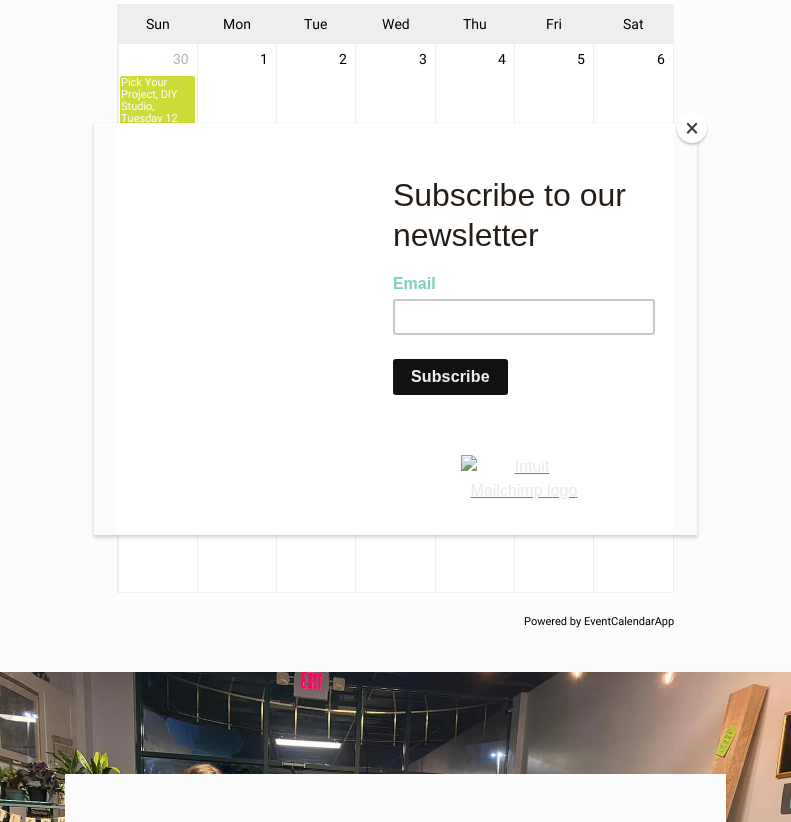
#include <cairo/cairo.h>
#include <math.h>
#include <stddef.h>

typedef struct { double x, y; const char *s; } line_t;
typedef struct { double x, y, w, h; unsigned color; } box_t;
static cairo_t *cr;

static void rgb(unsigned color)
{
	cairo_set_source_rgb(cr, (color >> 16) / 255.0, (color >> 8 & 255) / 255.0, (color & 255) / 255.0);
}

static void rrect(double x, double y, double w, double h, double r)
{
	cairo_new_sub_path(cr);
	cairo_arc(cr, x + w - r, y + h - r, r, 0, M_PI / 2);
	cairo_arc(cr, x + r, y + h - r, r, M_PI / 2, M_PI);
	cairo_arc(cr, x + r, y + r, r, M_PI, 1.5 * M_PI);
	cairo_arc(cr, x + w - r, y + r, r, 1.5 * M_PI, 2 * M_PI);
	cairo_close_path(cr);
}

static void soft_shadow(double x, double y, double w, double h, double r, double blur, double alpha)
{
	cairo_push_group_with_content(cr, CAIRO_CONTENT_ALPHA);
	cairo_set_operator(cr, CAIRO_OPERATOR_SOURCE);
	for (int i = 15; i >= -15 && fmin(w, h) + blur * i / 3 > 0; i -= 2) {
		double e = blur * i / 6;
		cairo_set_source_rgba(cr, 0, 0, 0, alpha * erfc((i - 1) / 8.5) / 2);
		rrect(x - e, y - e, w + 2 * e, h + 2 * e, fmax(0, fmin(r + e + blur * .6, fmin(w, h) / 2 + e)));
		cairo_fill(cr);
	}
	cairo_pattern_t *soft = cairo_pop_group(cr);
	cairo_mask(cr, soft);
	cairo_pattern_destroy(soft);
}

static void image(const char *path, double x, double y, double w, double h)
{
	cairo_surface_t *image = cairo_image_surface_create_from_png(path);
	cairo_save(cr);
	cairo_set_source_surface(cr, image, x, y);
	cairo_rectangle(cr, x, y, w, h);
	cairo_fill(cr);
	cairo_restore(cr);
	cairo_surface_destroy(image);
}

int main(void) {
	cairo_surface_t *surface = cairo_image_surface_create(CAIRO_FORMAT_RGB24, 791, 822);
	cr = cairo_create(surface);
	cairo_font_options_t *options = cairo_font_options_create();
	cairo_font_options_set_hint_metrics(options, CAIRO_HINT_METRICS_OFF);
	cairo_font_options_set_hint_style(options, CAIRO_HINT_STYLE_NONE);
	cairo_set_font_options(cr, options);
	cairo_set_miter_limit(cr, 4);
	rgb(0xfcfcfc);
	cairo_paint(cr);
	{
		static const box_t items[] = {
			{117, 0, 557, 4, 0xffffff},
			{117, 4, 557, 1, 0xeeeeee},
			{117, 4, 1, 589, 0xeeeeee},
			{118, 5, 556, 39, 0xeeeeee},
			{673, 44, 1, 549, 0xeeeeee},
			{118, 592, 556, 1, 0xeeeeee},
			{119, 44, 554, 548, 0xffffff},
			{118, 44, 1, 79, 0xeeeeee},
		};
		for (size_t i = 0; i < sizeof items / sizeof *items; i++) {
			rgb(items[i].color);
			cairo_rectangle(cr, items[i].x, items[i].y, items[i].w, items[i].h);
			cairo_fill(cr);
		}
	}
	rgb(0xcddc39);
	rrect(120, 76, 75, 62, 2);
	cairo_fill(cr);
	{
		static const box_t items[] = {
			{197, 44, 1, 79, 0xeeeeee},
			{276, 44, 1, 79, 0xeeeeee},
			{355, 44, 1, 79, 0xeeeeee},
			{435, 44, 1, 79, 0xeeeeee},
			{514, 44, 1, 79, 0xeeeeee},
			{593, 44, 1, 79, 0xeeeeee},
			{118, 535, 1, 57, 0xeeeeee},
			{197, 535, 1, 57, 0xeeeeee},
			{276, 535, 1, 57, 0xeeeeee},
			{355, 535, 1, 57, 0xeeeeee},
			{435, 535, 1, 57, 0xeeeeee},
			{514, 535, 1, 57, 0xeeeeee},
			{593, 535, 1, 57, 0xeeeeee},
		};
		for (size_t i = 0; i < sizeof items / sizeof *items; i++) {
			rgb(items[i].color);
			cairo_rectangle(cr, items[i].x, items[i].y, items[i].w, items[i].h);
			cairo_fill(cr);
		}
	}
	image("img/1.png", 0, 672, 791, 150);
	rgb(0xfcfcfc);
	cairo_rectangle(cr, 65, 774, 661, 48);
	cairo_fill(cr);
	cairo_save(cr);
	cairo_set_fill_rule(cr, CAIRO_FILL_RULE_EVEN_ODD);
	cairo_new_path(cr);
	cairo_move_to(cr, 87, 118);
	cairo_line_to(cr, 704, 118);
	cairo_line_to(cr, 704, 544);
	cairo_line_to(cr, 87, 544);
	cairo_close_path(cr);
	cairo_move_to(cr, 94, 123);
	cairo_line_to(cr, 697, 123);
	cairo_line_to(cr, 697, 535);
	cairo_line_to(cr, 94, 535);
	cairo_close_path(cr);
	cairo_clip(cr);
	rgb(0x000000);
	soft_shadow(94, 125, 603, 412, 0, 2, 0.2);
	cairo_restore(cr);
	cairo_select_font_face(cr, "Roboto", CAIRO_FONT_SLANT_NORMAL, CAIRO_FONT_WEIGHT_NORMAL);
	cairo_set_font_size(cr, 14);
	rgb(0x000000);
	{
		static const line_t items[] = {
			{146, 29, "Sun"},
			{223, 29, "Mon"},
			{304, 29, "Tue"},
			{382, 29, "Wed"},
			{463, 29, "Thu"},
			{546, 29, "Fri"},
			{623, 29, "Sat"},
		};
		for (size_t i = 0; i < sizeof items / sizeof *items; i++) {
			cairo_move_to(cr, items[i].x, items[i].y);
			cairo_show_text(cr, items[i].s);
		}
	}
	rgb(0xb3b3b3);
	cairo_move_to(cr, 173, 64);
	cairo_show_text(cr, "30");
	cairo_set_font_size(cr, 11);
	rgb(0xffffff);
	{
		static const line_t items[] = {
			{121, 86, "Pick Your"},
			{121, 98, "Project, DIY"},
			{121, 110, "Studio,"},
			{121, 122, "Tuesday 12"},
		};
		for (size_t i = 0; i < sizeof items / sizeof *items; i++) {
			cairo_move_to(cr, items[i].x, items[i].y);
			cairo_show_text(cr, items[i].s);
		}
	}
	cairo_set_font_size(cr, 14);
	rgb(0x000000);
	{
		static const line_t items[] = {
			{260, 64, "1"},
			{339, 64, "2"},
			{419, 64, "3"},
			{498, 64, "4"},
			{577, 64, "5"},
			{657, 64, "6"},
		};
		for (size_t i = 0; i < sizeof items / sizeof *items; i++) {
			cairo_move_to(cr, items[i].x, items[i].y);
			cairo_show_text(cr, items[i].s);
		}
	}
	cairo_set_font_size(cr, 11);
	cairo_move_to(cr, 524, 625);
	cairo_show_text(cr, "Powered by EventCalendarApp");
	image("img/2.png", 117, 123, 557, 412);
	rgb(0x000000);
	soft_shadow(677, 115, 30, 30, 15, 1, 0.2);
	rgb(0xffffff);
	cairo_arc(cr, 692, 128, 15, 0, 2 * M_PI);
	cairo_fill(cr);
	rgb(0x414141);
	cairo_new_path(cr);
	cairo_move_to(cr, 696, 122.5);
	cairo_line_to(cr, 697.5, 124);
	cairo_line_to(cr, 688, 134);
	cairo_line_to(cr, 686.5, 132.5);
	cairo_close_path(cr);
	cairo_fill(cr);
	cairo_new_path(cr);
	cairo_move_to(cr, 686.5, 124);
	cairo_line_to(cr, 688, 122.5);
	cairo_line_to(cr, 697.5, 132.5);
	cairo_line_to(cr, 696, 134);
	cairo_close_path(cr);
	cairo_fill(cr);
	cairo_surface_write_to_png(surface, "page.png");
	cairo_font_options_destroy(options);
	cairo_destroy(cr);
	cairo_surface_destroy(surface);
	return 0;
}
